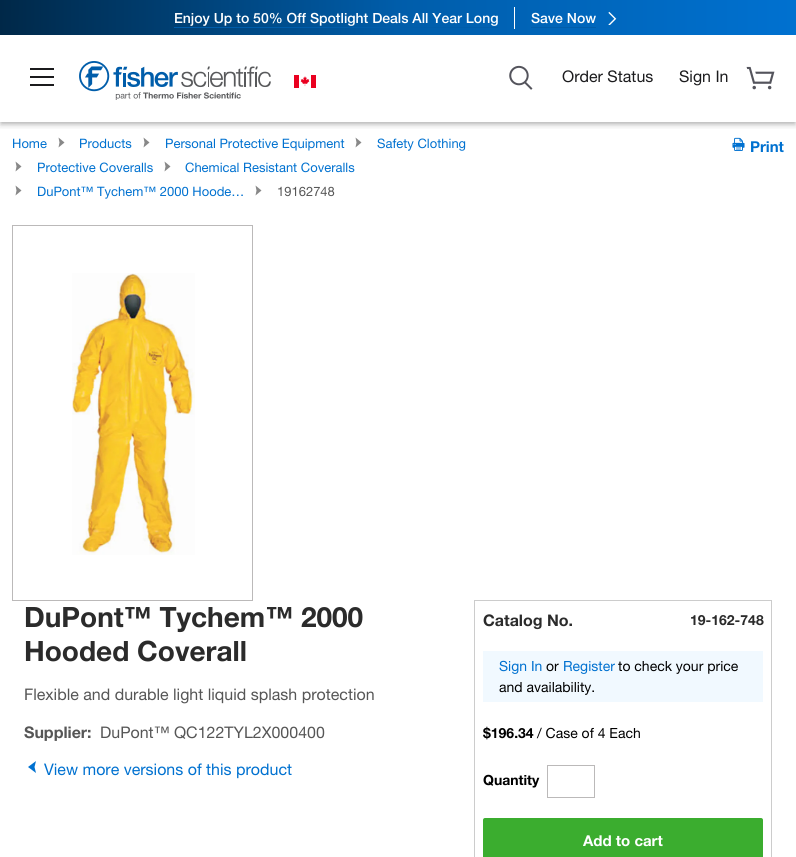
#include <cairo/cairo.h>
#include <math.h>
#include <stddef.h>

typedef struct { double x, y; const char *s; } line_t;
typedef struct { double x, y, w, h; unsigned color; } box_t;
static cairo_t *cr;

static void rgb(unsigned color)
{
	cairo_set_source_rgb(cr, (color >> 16) / 255.0, (color >> 8 & 255) / 255.0, (color & 255) / 255.0);
}

static void rrect(double x, double y, double w, double h, double r)
{
	cairo_new_sub_path(cr);
	cairo_arc(cr, x + w - r, y + h - r, r, 0, M_PI / 2);
	cairo_arc(cr, x + r, y + h - r, r, M_PI / 2, M_PI);
	cairo_arc(cr, x + r, y + r, r, M_PI, 1.5 * M_PI);
	cairo_arc(cr, x + w - r, y + r, r, 1.5 * M_PI, 2 * M_PI);
	cairo_close_path(cr);
}

static void soft_shadow(double x, double y, double w, double h, double r, double blur, double alpha)
{
	cairo_push_group_with_content(cr, CAIRO_CONTENT_ALPHA);
	cairo_set_operator(cr, CAIRO_OPERATOR_SOURCE);
	for (int i = 15; i >= -15 && fmin(w, h) + blur * i / 3 > 0; i -= 2) {
		double e = blur * i / 6;
		cairo_set_source_rgba(cr, 0, 0, 0, alpha * erfc((i - 1) / 8.5) / 2);
		rrect(x - e, y - e, w + 2 * e, h + 2 * e, fmax(0, fmin(r + e + blur * .6, fmin(w, h) / 2 + e)));
		cairo_fill(cr);
	}
	cairo_pattern_t *soft = cairo_pop_group(cr);
	cairo_mask(cr, soft);
	cairo_pattern_destroy(soft);
}

static void image(const char *path, double x, double y, double w, double h)
{
	cairo_surface_t *image = cairo_image_surface_create_from_png(path);
	cairo_save(cr);
	cairo_set_source_surface(cr, image, x, y);
	cairo_rectangle(cr, x, y, w, h);
	cairo_fill(cr);
	cairo_restore(cr);
	cairo_surface_destroy(image);
}

int main(void) {
	cairo_surface_t *surface = cairo_image_surface_create(CAIRO_FORMAT_RGB24, 796, 857);
	cr = cairo_create(surface);
	cairo_font_options_t *options = cairo_font_options_create();
	cairo_font_options_set_hint_metrics(options, CAIRO_HINT_METRICS_OFF);
	cairo_font_options_set_hint_style(options, CAIRO_HINT_STYLE_NONE);
	cairo_set_font_options(cr, options);
	cairo_set_miter_limit(cr, 4);
	cairo_pattern_t *gradient;
	rgb(0xffffff);
	cairo_paint(cr);
	gradient = cairo_pattern_create_linear(796, 18, 0, 17);
	cairo_pattern_add_color_stop_rgba(gradient, 0, 0, 0.443, 0.816, 1);
	cairo_pattern_add_color_stop_rgba(gradient, 0.5, 0, 0.365, 0.667, 1);
	cairo_pattern_add_color_stop_rgba(gradient, 1, 0, 0.157, 0.282, 1);
	cairo_set_source(cr, gradient);
	cairo_pattern_destroy(gradient);
	cairo_rectangle(cr, 0, 0, 796, 35);
	cairo_fill(cr);
	{
		static const box_t items[] = {
			{174, 27, 324, 1, 0x005daa},
			{514, 7, 1, 22, 0xffffff},
			{531, 27, 65, 1, 0x005daa},
		};
		for (size_t i = 0; i < sizeof items / sizeof *items; i++) {
			rgb(items[i].color);
			cairo_rectangle(cr, items[i].x, items[i].y, items[i].w, items[i].h);
			cairo_fill(cr);
		}
	}
	image("img/1.png", 608, 11, 9, 14);
	cairo_save(cr);
	cairo_rectangle(cr, 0, 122, 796, 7);
	cairo_clip(cr);
	rgb(0x000000);
	soft_shadow(0, 39, 796, 87, 0, 2.5, 0.14);
	cairo_restore(cr);
	cairo_save(cr);
	cairo_rectangle(cr, 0, 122, 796, 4);
	cairo_clip(cr);
	rgb(0x000000);
	soft_shadow(1, 38, 794, 85, 0, 2, 0.2);
	cairo_restore(cr);
	{
		static const box_t items[] = {
			{30, 76, 24, 2, 0x1b1b1d},
			{30, 68, 24, 2, 0x1b1b1d},
			{30, 84, 24, 2, 0x1b1b1d},
		};
		for (size_t i = 0; i < sizeof items / sizeof *items; i++) {
			rgb(items[i].color);
			cairo_rectangle(cr, items[i].x, items[i].y, items[i].w, items[i].h);
			cairo_fill(cr);
		}
	}
	image("img/2.png", 79, 61, 192, 39);
	image("img/3.png", 294, 75, 22, 13);
	image("img/4.png", 509, 65, 24, 25);
	image("img/5.png", 746, 66, 29, 24);
	rgb(0x888888);
	cairo_new_path(cr);
	cairo_move_to(cr, 58.5, 137.5);
	cairo_line_to(cr, 59.5, 142.5);
	cairo_line_to(cr, 58.5, 147.5);
	cairo_line_to(cr, 64.5, 142.5);
	cairo_close_path(cr);
	cairo_fill(cr);
	cairo_new_path(cr);
	cairo_move_to(cr, 143.5, 137.5);
	cairo_line_to(cr, 144.5, 142.5);
	cairo_line_to(cr, 143.5, 147.5);
	cairo_line_to(cr, 149.5, 142.5);
	cairo_close_path(cr);
	cairo_fill(cr);
	cairo_new_path(cr);
	cairo_move_to(cr, 355.5, 137.5);
	cairo_line_to(cr, 356.5, 142.5);
	cairo_line_to(cr, 355.5, 147.5);
	cairo_line_to(cr, 361.5, 142.5);
	cairo_close_path(cr);
	cairo_fill(cr);
	cairo_new_path(cr);
	cairo_move_to(cr, 15.5, 161.5);
	cairo_line_to(cr, 16.5, 166.5);
	cairo_line_to(cr, 15.5, 171.5);
	cairo_line_to(cr, 21.5, 166.5);
	cairo_close_path(cr);
	cairo_fill(cr);
	cairo_new_path(cr);
	cairo_move_to(cr, 164.5, 161.5);
	cairo_line_to(cr, 165.5, 166.5);
	cairo_line_to(cr, 164.5, 171.5);
	cairo_line_to(cr, 170.5, 166.5);
	cairo_close_path(cr);
	cairo_fill(cr);
	cairo_new_path(cr);
	cairo_move_to(cr, 15.5, 185.5);
	cairo_line_to(cr, 16.5, 190.5);
	cairo_line_to(cr, 15.5, 195.5);
	cairo_line_to(cr, 21.5, 190.5);
	cairo_close_path(cr);
	cairo_fill(cr);
	cairo_new_path(cr);
	cairo_move_to(cr, 255.5, 185.5);
	cairo_line_to(cr, 256.5, 190.5);
	cairo_line_to(cr, 255.5, 195.5);
	cairo_line_to(cr, 261.5, 190.5);
	cairo_close_path(cr);
	cairo_fill(cr);
	image("img/6.png", 732, 137, 13, 14);
	cairo_rectangle(cr, 12.5, 225.5, 240, 375);
	rgb(0xbbb9b9);
	cairo_set_line_width(cr, 1);
	cairo_stroke(cr);
	image("img/7.png", 72, 273, 123, 282);
	rgb(0x0071d0);
	cairo_new_path(cr);
	cairo_move_to(cr, 36, 773);
	cairo_line_to(cr, 34.5, 767);
	cairo_line_to(cr, 36, 761);
	cairo_line_to(cr, 28, 767);
	cairo_close_path(cr);
	cairo_fill(cr);
	cairo_rectangle(cr, 474.5, 600.5, 297, 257);
	rgb(0xcccccc);
	cairo_stroke(cr);
	rgb(0xf1f9ff);
	cairo_rectangle(cr, 483, 651, 280, 51);
	cairo_fill(cr);
	cairo_rectangle(cr, 547.5, 765.5, 47, 32);
	rgb(0xbbb9b9);
	cairo_stroke(cr);
	rgb(0x3bad2f);
	rrect(483, 818, 280, 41, 2);
	cairo_fill(cr);
	cairo_select_font_face(cr, "Helvetica Neue Medium", CAIRO_FONT_SLANT_NORMAL, CAIRO_FONT_WEIGHT_NORMAL);
	cairo_set_font_size(cr, 14);
	rgb(0xffffff);
	cairo_move_to(cr, 174, 23);
	cairo_show_text(cr, "Enjoy Up to 50% Off Spotlight Deals All Year Long");
	cairo_move_to(cr, 531, 23);
	cairo_show_text(cr, "Save Now");
	cairo_select_font_face(cr, "Helvetica Neue", CAIRO_FONT_SLANT_NORMAL, CAIRO_FONT_WEIGHT_NORMAL);
	cairo_set_font_size(cr, 16);
	rgb(0x1b1b1d);
	cairo_move_to(cr, 562, 82);
	cairo_show_text(cr, "Order Status");
	cairo_move_to(cr, 679, 82);
	cairo_show_text(cr, "Sign In");
	cairo_set_font_size(cr, 13);
	rgb(0x0071d0);
	{
		static const line_t items[] = {
			{12, 148, "Home"},
			{79, 148, "Products"},
			{165, 148, "Personal Protective Equipment"},
			{377, 148, "Safety Clothing"},
			{37, 172, "Protective Coveralls"},
			{185, 172, "Chemical Resistant Coveralls"},
			{37, 196, "DuPont™ Tychem™ 2000 Hoode…"},
		};
		for (size_t i = 0; i < sizeof items / sizeof *items; i++) {
			cairo_move_to(cr, items[i].x, items[i].y);
			cairo_show_text(cr, items[i].s);
		}
	}
	rgb(0x565656);
	cairo_move_to(cr, 277, 196);
	cairo_show_text(cr, "19162748");
	cairo_select_font_face(cr, "Helvetica Neue", CAIRO_FONT_SLANT_NORMAL, CAIRO_FONT_WEIGHT_BOLD);
	cairo_set_font_size(cr, 15);
	rgb(0x0071d0);
	cairo_move_to(cr, 750, 152);
	cairo_show_text(cr, "Print");
	cairo_set_font_size(cr, 28);
	rgb(0x2b2b2b);
	cairo_move_to(cr, 24, 627);
	cairo_show_text(cr, "DuPont™ Tychem™ 2000");
	cairo_move_to(cr, 24, 661);
	cairo_show_text(cr, "Hooded Coverall");
	cairo_select_font_face(cr, "Helvetica Neue", CAIRO_FONT_SLANT_NORMAL, CAIRO_FONT_WEIGHT_NORMAL);
	cairo_set_font_size(cr, 16);
	rgb(0x565656);
	cairo_move_to(cr, 24, 700);
	cairo_show_text(cr, "Flexible and durable light liquid splash protection");
	cairo_select_font_face(cr, "Helvetica Neue", CAIRO_FONT_SLANT_NORMAL, CAIRO_FONT_WEIGHT_BOLD);
	cairo_move_to(cr, 24, 738);
	cairo_show_text(cr, "Supplier:");
	cairo_select_font_face(cr, "Helvetica Neue", CAIRO_FONT_SLANT_NORMAL, CAIRO_FONT_WEIGHT_NORMAL);
	cairo_move_to(cr, 100, 738);
	cairo_show_text(cr, "DuPont™ QC122TYL2X000400");
	rgb(0x0071d0);
	cairo_move_to(cr, 44, 775);
	cairo_show_text(cr, "View more versions of this product");
	cairo_select_font_face(cr, "Helvetica Neue", CAIRO_FONT_SLANT_NORMAL, CAIRO_FONT_WEIGHT_BOLD);
	rgb(0x2b2b2b);
	cairo_move_to(cr, 483, 626);
	cairo_show_text(cr, "Catalog No.");
	cairo_set_font_size(cr, 14);
	cairo_move_to(cr, 690, 625);
	cairo_show_text(cr, "19-162-748");
	cairo_select_font_face(cr, "Helvetica Neue", CAIRO_FONT_SLANT_NORMAL, CAIRO_FONT_WEIGHT_NORMAL);
	rgb(0x0071d0);
	cairo_move_to(cr, 499, 671);
	cairo_show_text(cr, "Sign In");
	rgb(0x000000);
	cairo_move_to(cr, 546, 671);
	cairo_show_text(cr, "or");
	rgb(0x0071d0);
	cairo_move_to(cr, 563, 671);
	cairo_show_text(cr, "Register");
	rgb(0x000000);
	cairo_move_to(cr, 618, 671);
	cairo_show_text(cr, "to check your price");
	cairo_move_to(cr, 499, 692);
	cairo_show_text(cr, "and availability.");
	cairo_select_font_face(cr, "Helvetica Neue", CAIRO_FONT_SLANT_NORMAL, CAIRO_FONT_WEIGHT_BOLD);
	cairo_move_to(cr, 483, 738);
	cairo_show_text(cr, "$196.34");
	cairo_select_font_face(cr, "Helvetica Neue", CAIRO_FONT_SLANT_NORMAL, CAIRO_FONT_WEIGHT_NORMAL);
	cairo_move_to(cr, 537, 738);
	cairo_show_text(cr, "/ Case of 4 Each");
	cairo_select_font_face(cr, "Helvetica Neue", CAIRO_FONT_SLANT_NORMAL, CAIRO_FONT_WEIGHT_BOLD);
	cairo_move_to(cr, 483, 785);
	cairo_show_text(cr, "Quantity");
	cairo_set_font_size(cr, 15);
	rgb(0xffffff);
	cairo_move_to(cr, 583, 846);
	cairo_show_text(cr, "Add to cart");
	cairo_surface_write_to_png(surface, "page.png");
	cairo_font_options_destroy(options);
	cairo_destroy(cr);
	cairo_surface_destroy(surface);
	return 0;
}
